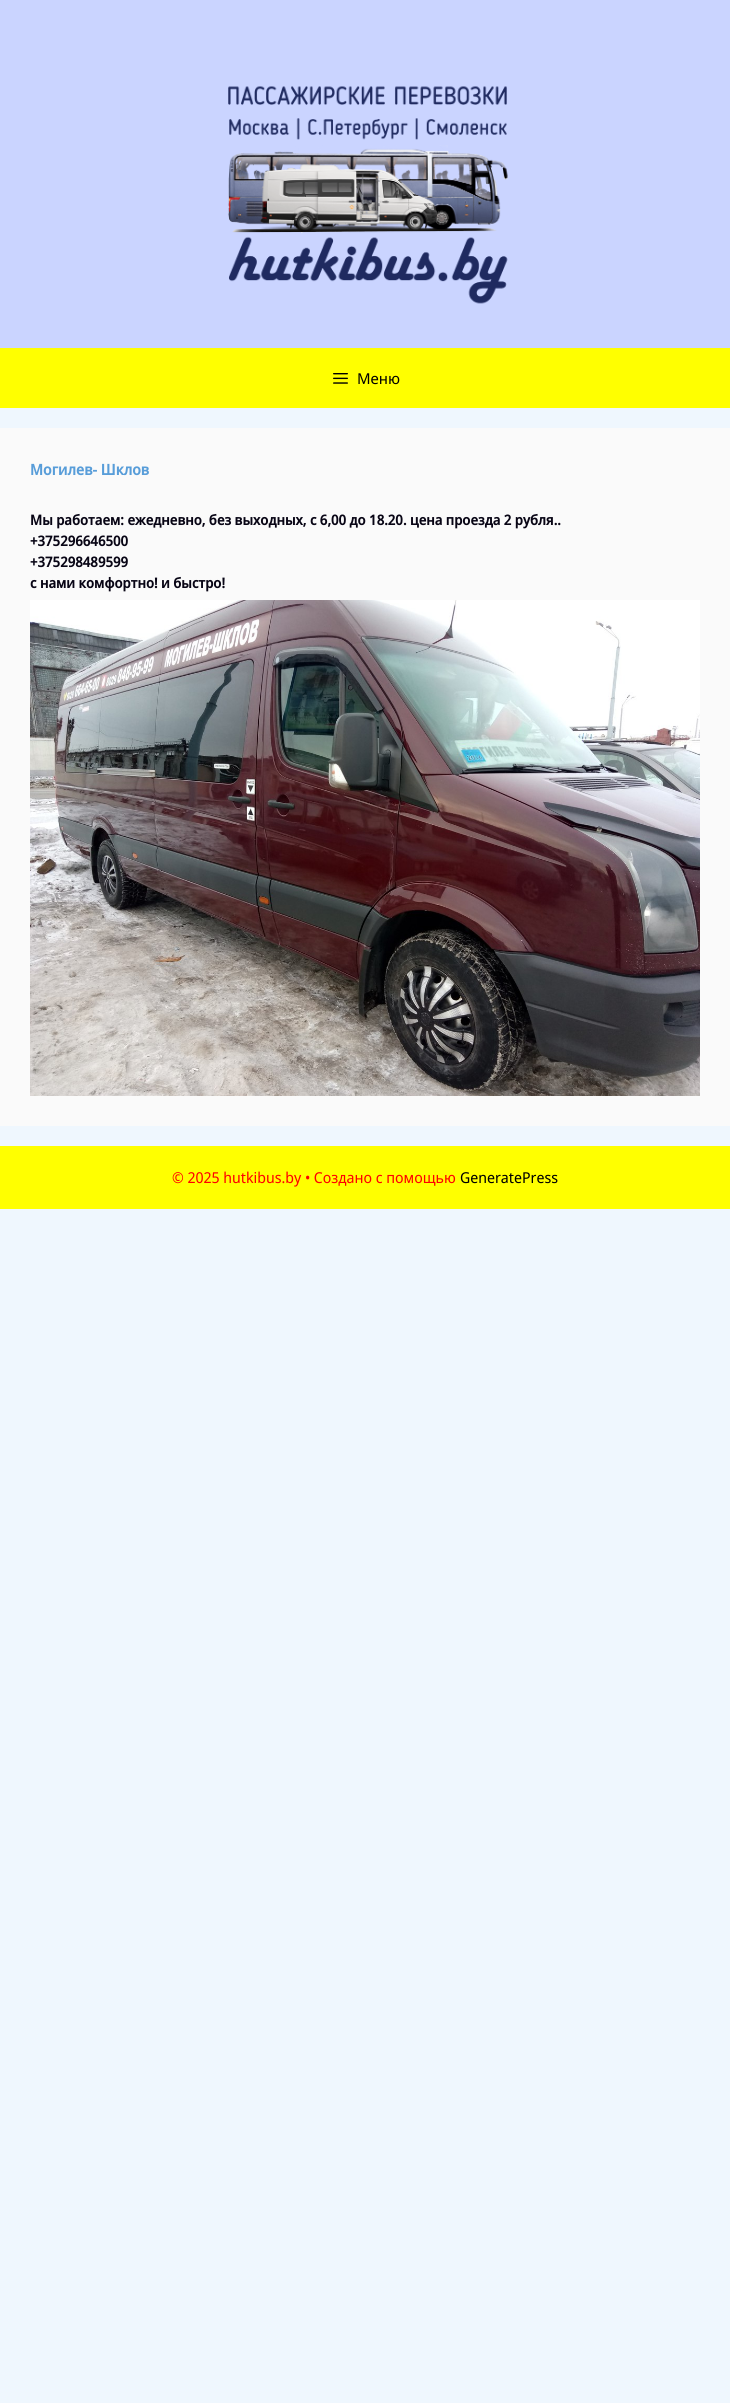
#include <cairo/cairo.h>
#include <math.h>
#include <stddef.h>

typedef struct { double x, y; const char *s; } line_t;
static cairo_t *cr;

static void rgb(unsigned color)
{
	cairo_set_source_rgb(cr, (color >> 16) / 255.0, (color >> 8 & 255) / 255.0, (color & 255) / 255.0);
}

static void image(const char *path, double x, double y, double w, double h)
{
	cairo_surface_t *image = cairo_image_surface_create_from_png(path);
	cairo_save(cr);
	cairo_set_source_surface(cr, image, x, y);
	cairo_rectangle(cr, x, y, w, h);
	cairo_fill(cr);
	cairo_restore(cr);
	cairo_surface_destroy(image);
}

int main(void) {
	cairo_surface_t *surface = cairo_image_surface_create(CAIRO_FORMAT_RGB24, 730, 2403);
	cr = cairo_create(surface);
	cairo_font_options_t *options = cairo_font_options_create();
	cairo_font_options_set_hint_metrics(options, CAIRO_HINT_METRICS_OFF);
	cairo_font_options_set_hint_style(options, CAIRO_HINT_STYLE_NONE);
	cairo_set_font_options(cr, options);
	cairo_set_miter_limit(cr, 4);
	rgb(0xeff7fe);
	cairo_paint(cr);
	rgb(0xcad4ff);
	cairo_rectangle(cr, 0, 0, 730, 348);
	cairo_fill(cr);
	image("img/1.png", 228, 86, 280, 218);
	rgb(0xffff00);
	cairo_rectangle(cr, 0, 348, 730, 60);
	cairo_fill(cr);
	image("img/2.png", 333, 373, 15, 11);
	rgb(0xfafafa);
	cairo_rectangle(cr, 0, 428, 730, 698);
	cairo_fill(cr);
	image("img/3.png", 30, 600, 670, 496);
	rgb(0xffff00);
	cairo_rectangle(cr, 0, 1146, 730, 63);
	cairo_fill(cr);
	cairo_select_font_face(cr, "Noto Sans", CAIRO_FONT_SLANT_NORMAL, CAIRO_FONT_WEIGHT_NORMAL);
	cairo_set_font_size(cr, 15);
	rgb(0x000000);
	cairo_move_to(cr, 357, 384);
	cairo_show_text(cr, "Меню");
	cairo_select_font_face(cr, "Noto Sans Display", CAIRO_FONT_SLANT_NORMAL, CAIRO_FONT_WEIGHT_BOLD);
	rgb(0x589dd9);
	cairo_move_to(cr, 30, 475);
	cairo_show_text(cr, "Могилев- Шклов");
	cairo_set_font_size(cr, 14);
	rgb(0x080515);
	{
		static const line_t items[] = {
			{30, 525, "Мы работаем: ежедневно, без выходных, с 6,00 до 18.20. цена проезда 2 рубля.."},
			{30, 546, "+375296646500"},
			{30, 567, "+375298489599"},
			{30, 588, "с нами комфортно! и быстро!"},
		};
		for (size_t i = 0; i < sizeof items / sizeof *items; i++) {
			cairo_move_to(cr, items[i].x, items[i].y);
			cairo_show_text(cr, items[i].s);
		}
	}
	cairo_select_font_face(cr, "Noto Sans Display", CAIRO_FONT_SLANT_NORMAL, CAIRO_FONT_WEIGHT_NORMAL);
	cairo_set_font_size(cr, 15);
	rgb(0xff0000);
	cairo_move_to(cr, 172, 1183);
	cairo_show_text(cr, "© 2025 hutkibus.by • Создано с помощью");
	rgb(0x000000);
	cairo_move_to(cr, 460, 1183);
	cairo_show_text(cr, "GeneratePress");
	cairo_surface_write_to_png(surface, "page.png");
	cairo_font_options_destroy(options);
	cairo_destroy(cr);
	cairo_surface_destroy(surface);
	return 0;
}
